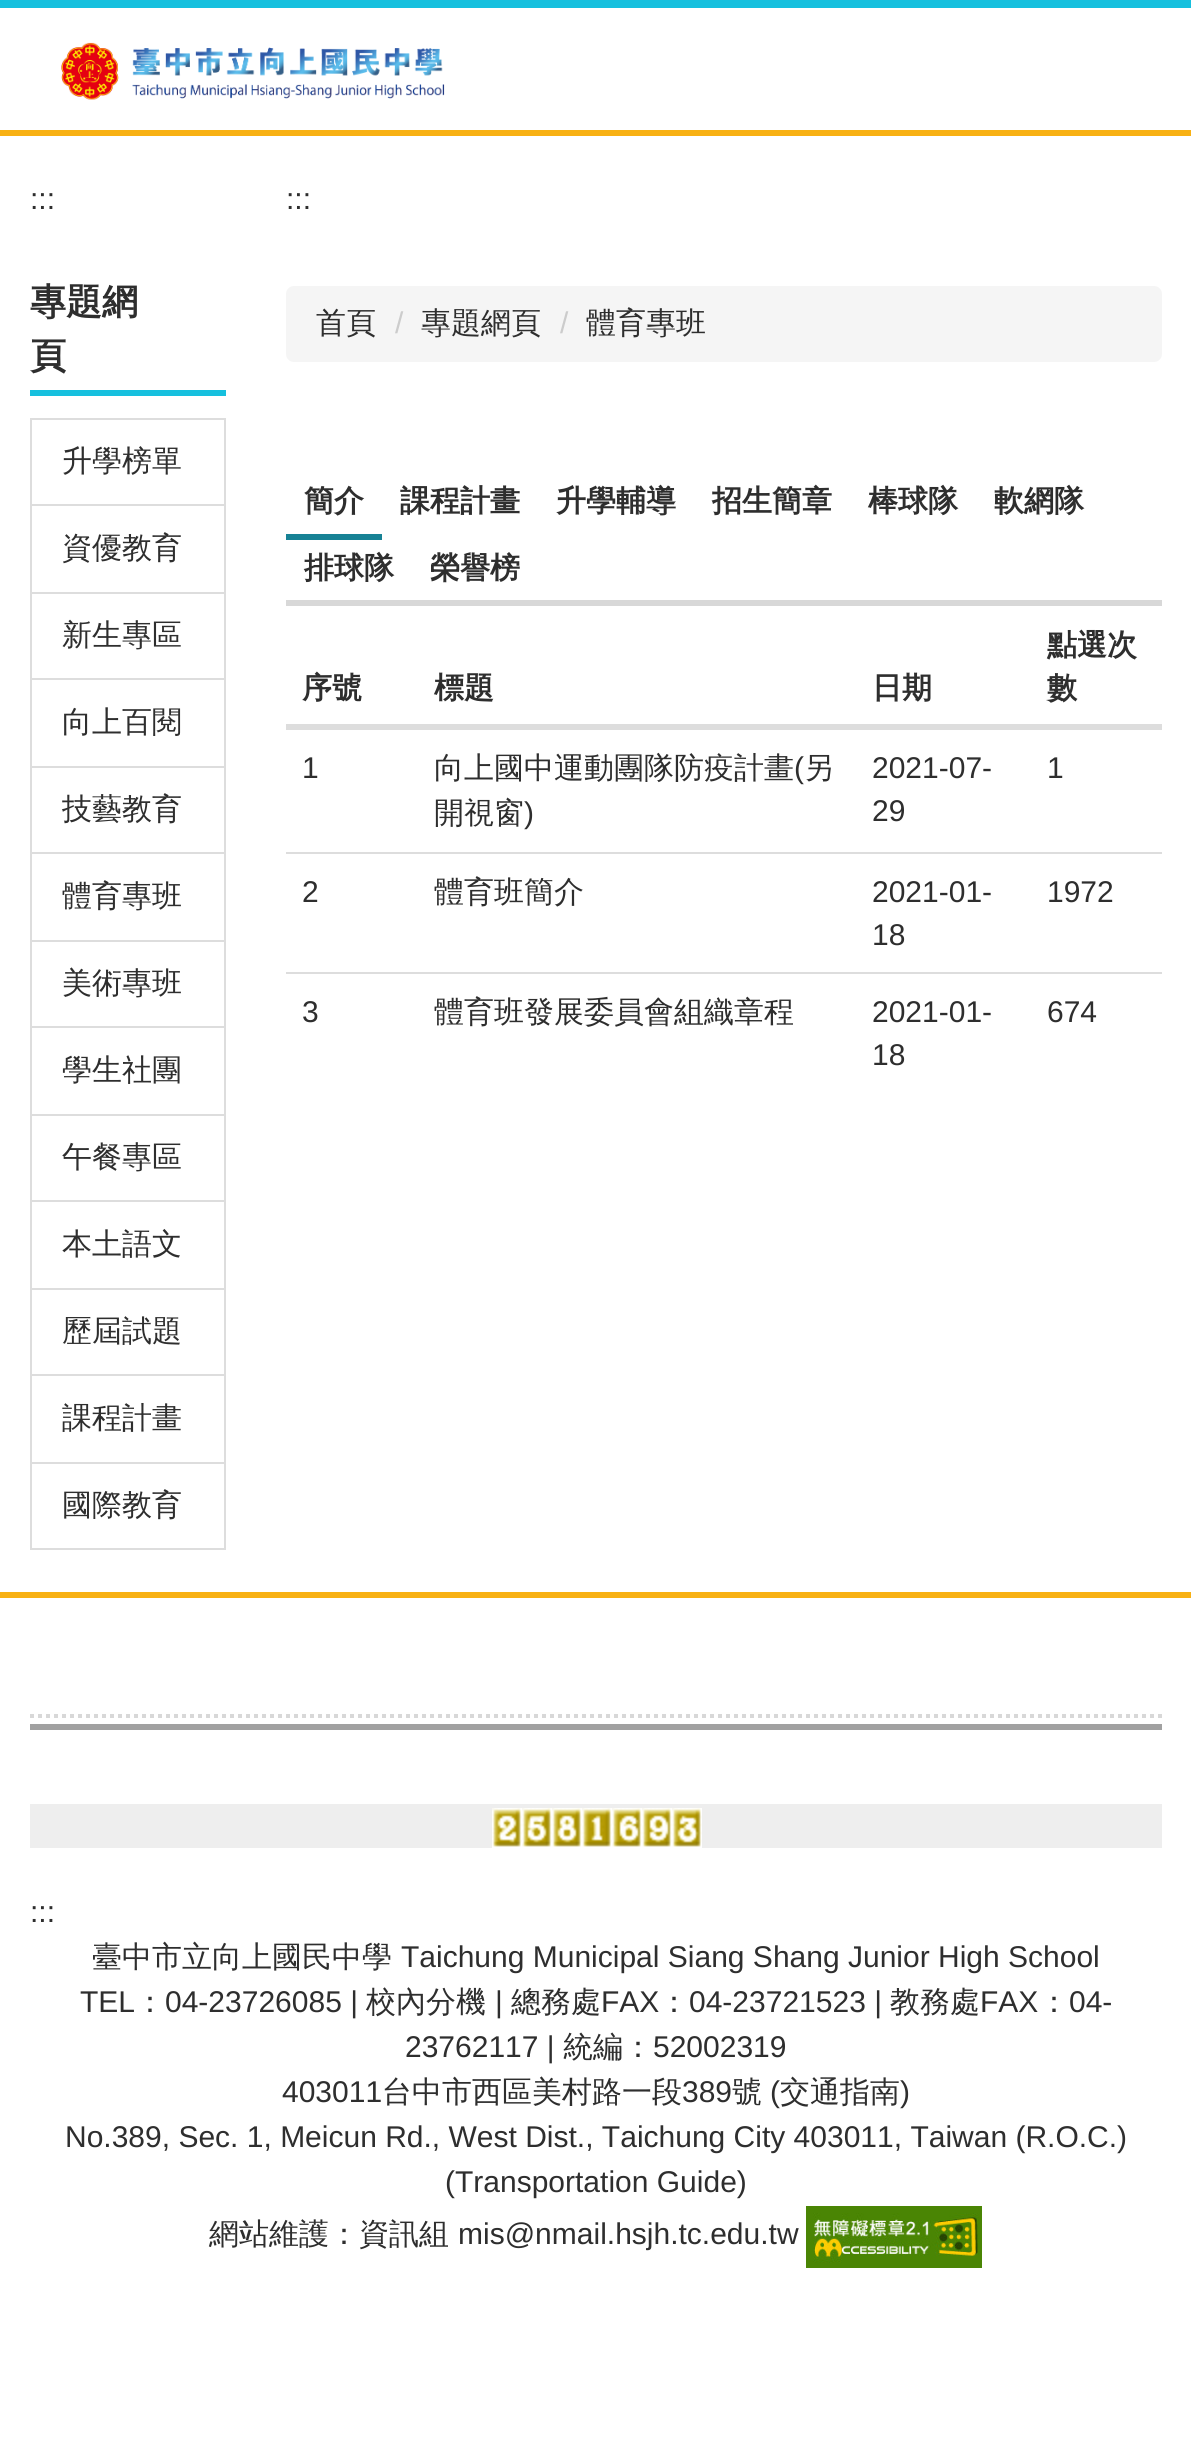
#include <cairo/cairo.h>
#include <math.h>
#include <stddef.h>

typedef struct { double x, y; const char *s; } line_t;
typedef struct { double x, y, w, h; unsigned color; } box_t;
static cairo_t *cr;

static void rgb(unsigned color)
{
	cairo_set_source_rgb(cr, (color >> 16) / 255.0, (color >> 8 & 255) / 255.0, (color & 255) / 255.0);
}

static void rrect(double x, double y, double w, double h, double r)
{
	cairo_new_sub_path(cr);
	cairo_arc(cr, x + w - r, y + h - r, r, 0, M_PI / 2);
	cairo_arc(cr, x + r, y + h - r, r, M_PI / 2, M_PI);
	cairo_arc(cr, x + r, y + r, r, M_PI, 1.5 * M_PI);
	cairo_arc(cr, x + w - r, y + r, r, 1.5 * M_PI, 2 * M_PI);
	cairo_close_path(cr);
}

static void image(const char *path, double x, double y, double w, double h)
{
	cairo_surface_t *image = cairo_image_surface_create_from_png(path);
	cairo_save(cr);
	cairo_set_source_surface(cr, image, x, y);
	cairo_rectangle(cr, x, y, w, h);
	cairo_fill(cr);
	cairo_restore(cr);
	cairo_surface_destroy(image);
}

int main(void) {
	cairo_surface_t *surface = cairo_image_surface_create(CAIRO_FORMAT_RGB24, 1191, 2451);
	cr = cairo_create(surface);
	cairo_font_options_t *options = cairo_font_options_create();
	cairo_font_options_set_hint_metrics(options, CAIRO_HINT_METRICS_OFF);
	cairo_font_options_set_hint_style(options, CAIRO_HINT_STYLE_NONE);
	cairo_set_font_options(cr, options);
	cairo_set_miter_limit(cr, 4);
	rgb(0xffffff);
	cairo_paint(cr);
	rgb(0x16c0de);
	cairo_rectangle(cr, 0, 0, 1191, 8);
	cairo_fill(cr);
	image("img/1.png", 61, 42, 384, 58);
	rgb(0xf8b114);
	cairo_rectangle(cr, 0, 130, 1191, 6);
	cairo_fill(cr);
	rgb(0x16c0de);
	cairo_rectangle(cr, 30, 390, 196, 6);
	cairo_fill(cr);
	cairo_rectangle(cr, 31, 419, 194, 86);
	rgb(0xdddddd);
	cairo_stroke(cr);
	cairo_rectangle(cr, 31, 505, 194, 88);
	cairo_stroke(cr);
	cairo_rectangle(cr, 31, 593, 194, 86);
	cairo_stroke(cr);
	cairo_rectangle(cr, 31, 679, 194, 88);
	cairo_stroke(cr);
	cairo_rectangle(cr, 31, 767, 194, 86);
	cairo_stroke(cr);
	cairo_rectangle(cr, 31, 853, 194, 88);
	cairo_stroke(cr);
	cairo_rectangle(cr, 31, 941, 194, 86);
	cairo_stroke(cr);
	cairo_rectangle(cr, 31, 1027, 194, 88);
	cairo_stroke(cr);
	cairo_rectangle(cr, 31, 1115, 194, 86);
	cairo_stroke(cr);
	cairo_rectangle(cr, 31, 1201, 194, 88);
	cairo_stroke(cr);
	cairo_rectangle(cr, 31, 1289, 194, 86);
	cairo_stroke(cr);
	cairo_rectangle(cr, 31, 1375, 194, 88);
	cairo_stroke(cr);
	cairo_rectangle(cr, 31, 1463, 194, 86);
	cairo_stroke(cr);
	rgb(0xf5f5f5);
	rrect(286, 286, 876, 76, 8);
	cairo_fill(cr);
	{
		static const box_t items[] = {
			{286, 600, 876, 6, 0xd8d8d8},
			{286, 534, 96, 6, 0x178295},
			{286, 724, 876, 4, 0xdddddd},
			{286, 728, 876, 2, 0xdddddd},
			{286, 852, 876, 2, 0xdddddd},
			{286, 972, 876, 2, 0xdddddd},
			{0, 1592, 1191, 6, 0xf8b114},
			{30, 1804, 1132, 44, 0xeeeeee},
			{30, 1724, 1132, 6, 0xa1a1a1},
		};
		for (size_t i = 0; i < sizeof items / sizeof *items; i++) {
			rgb(items[i].color);
			cairo_rectangle(cr, items[i].x, items[i].y, items[i].w, items[i].h);
			cairo_fill(cr);
		}
	}
	cairo_new_path(cr);
	cairo_move_to(cr, 30, 1716);
	cairo_line_to(cr, 1162, 1716);
	rgb(0xd8d8d8);
	cairo_set_line_width(cr, 4);
	cairo_set_dash(cr, (double[]){4, 4}, 2, 0);
	cairo_stroke(cr);
	image("img/2.png", 492, 1808, 30, 40);
	image("img/3.png", 522, 1808, 30, 40);
	image("img/4.png", 552, 1808, 30, 40);
	image("img/5.png", 582, 1808, 30, 40);
	image("img/6.png", 612, 1808, 30, 40);
	image("img/7.png", 642, 1808, 30, 40);
	image("img/8.png", 672, 1808, 30, 40);
	image("img/9.png", 806, 2206, 176, 62);
	cairo_select_font_face(cr, "Liberation Sans", CAIRO_FONT_SLANT_NORMAL, CAIRO_FONT_WEIGHT_NORMAL);
	cairo_set_font_size(cr, 30);
	rgb(0x2e2e2e);
	cairo_move_to(cr, 30, 209);
	cairo_show_text(cr, ":::");
	cairo_select_font_face(cr, "WenQuanYi Zen Hei", CAIRO_FONT_SLANT_NORMAL, CAIRO_FONT_WEIGHT_BOLD);
	cairo_set_font_size(cr, 36);
	cairo_move_to(cr, 30, 314);
	cairo_show_text(cr, "專題網");
	cairo_move_to(cr, 30, 368);
	cairo_show_text(cr, "頁");
	cairo_select_font_face(cr, "WenQuanYi Zen Hei Medium", CAIRO_FONT_SLANT_NORMAL, CAIRO_FONT_WEIGHT_NORMAL);
	cairo_set_font_size(cr, 30);
	{
		static const line_t items[] = {
			{62, 471, "升學榜單"},
			{62, 558, "資優教育"},
			{62, 645, "新生專區"},
			{62, 732, "向上百閱"},
			{62, 819, "技藝教育"},
			{62, 906, "體育專班"},
			{62, 993, "美術專班"},
			{62, 1080, "學生社團"},
			{62, 1167, "午餐專區"},
			{62, 1254, "本土語文"},
			{62, 1341, "歷屆試題"},
			{62, 1428, "課程計畫"},
			{62, 1515, "國際教育"},
		};
		for (size_t i = 0; i < sizeof items / sizeof *items; i++) {
			cairo_move_to(cr, items[i].x, items[i].y);
			cairo_show_text(cr, items[i].s);
		}
	}
	cairo_select_font_face(cr, "Liberation Sans", CAIRO_FONT_SLANT_NORMAL, CAIRO_FONT_WEIGHT_NORMAL);
	cairo_move_to(cr, 286, 209);
	cairo_show_text(cr, ":::");
	cairo_select_font_face(cr, "WenQuanYi Zen Hei Medium", CAIRO_FONT_SLANT_NORMAL, CAIRO_FONT_WEIGHT_NORMAL);
	cairo_move_to(cr, 316, 333);
	cairo_show_text(cr, "首頁");
	cairo_select_font_face(cr, "Liberation Sans", CAIRO_FONT_SLANT_NORMAL, CAIRO_FONT_WEIGHT_NORMAL);
	rgb(0xcccccc);
	cairo_move_to(cr, 395, 333);
	cairo_show_text(cr, "/");
	cairo_select_font_face(cr, "WenQuanYi Zen Hei Medium", CAIRO_FONT_SLANT_NORMAL, CAIRO_FONT_WEIGHT_NORMAL);
	rgb(0x2e2e2e);
	cairo_move_to(cr, 421, 333);
	cairo_show_text(cr, "專題網頁");
	cairo_select_font_face(cr, "Liberation Sans", CAIRO_FONT_SLANT_NORMAL, CAIRO_FONT_WEIGHT_NORMAL);
	rgb(0xcccccc);
	cairo_move_to(cr, 560, 333);
	cairo_show_text(cr, "/");
	cairo_select_font_face(cr, "WenQuanYi Zen Hei Medium", CAIRO_FONT_SLANT_NORMAL, CAIRO_FONT_WEIGHT_NORMAL);
	rgb(0x2e2e2e);
	cairo_move_to(cr, 586, 333);
	cairo_show_text(cr, "體育專班");
	cairo_select_font_face(cr, "WenQuanYi Zen Hei", CAIRO_FONT_SLANT_NORMAL, CAIRO_FONT_WEIGHT_BOLD);
	{
		static const line_t items[] = {
			{304, 511, "簡介"},
			{400, 511, "課程計畫"},
			{556, 511, "升學輔導"},
			{712, 511, "招生簡章"},
			{868, 511, "棒球隊"},
			{994, 511, "軟網隊"},
			{304, 578, "排球隊"},
			{430, 578, "榮譽榜"},
			{302, 698, "序號"},
			{434, 698, "標題"},
			{872, 698, "日期"},
			{1047, 655, "點選次"},
			{1047, 698, "數"},
		};
		for (size_t i = 0; i < sizeof items / sizeof *items; i++) {
			cairo_move_to(cr, items[i].x, items[i].y);
			cairo_show_text(cr, items[i].s);
		}
	}
	cairo_select_font_face(cr, "Liberation Sans", CAIRO_FONT_SLANT_NORMAL, CAIRO_FONT_WEIGHT_NORMAL);
	cairo_move_to(cr, 302, 778);
	cairo_show_text(cr, "1");
	cairo_select_font_face(cr, "WenQuanYi Zen Hei Medium", CAIRO_FONT_SLANT_NORMAL, CAIRO_FONT_WEIGHT_NORMAL);
	cairo_move_to(cr, 434, 778);
	cairo_show_text(cr, "向上國中運動團隊防疫計畫");
	cairo_select_font_face(cr, "Liberation Sans", CAIRO_FONT_SLANT_NORMAL, CAIRO_FONT_WEIGHT_NORMAL);
	cairo_move_to(cr, 794, 778);
	cairo_show_text(cr, "(");
	cairo_select_font_face(cr, "WenQuanYi Zen Hei Medium", CAIRO_FONT_SLANT_NORMAL, CAIRO_FONT_WEIGHT_NORMAL);
	cairo_move_to(cr, 804, 778);
	cairo_show_text(cr, "另");
	cairo_move_to(cr, 434, 823);
	cairo_show_text(cr, "開視窗");
	cairo_select_font_face(cr, "Liberation Sans", CAIRO_FONT_SLANT_NORMAL, CAIRO_FONT_WEIGHT_NORMAL);
	{
		static const line_t items[] = {
			{524, 823, ")"},
			{872, 778, "2021-07-"},
			{872, 821, "29"},
			{1047, 778, "1"},
			{302, 902, "2"},
		};
		for (size_t i = 0; i < sizeof items / sizeof *items; i++) {
			cairo_move_to(cr, items[i].x, items[i].y);
			cairo_show_text(cr, items[i].s);
		}
	}
	cairo_select_font_face(cr, "WenQuanYi Zen Hei Medium", CAIRO_FONT_SLANT_NORMAL, CAIRO_FONT_WEIGHT_NORMAL);
	cairo_move_to(cr, 434, 902);
	cairo_show_text(cr, "體育班簡介");
	cairo_select_font_face(cr, "Liberation Sans", CAIRO_FONT_SLANT_NORMAL, CAIRO_FONT_WEIGHT_NORMAL);
	{
		static const line_t items[] = {
			{872, 902, "2021-01-"},
			{872, 945, "18"},
			{1047, 902, "1972"},
			{302, 1022, "3"},
		};
		for (size_t i = 0; i < sizeof items / sizeof *items; i++) {
			cairo_move_to(cr, items[i].x, items[i].y);
			cairo_show_text(cr, items[i].s);
		}
	}
	cairo_select_font_face(cr, "WenQuanYi Zen Hei Medium", CAIRO_FONT_SLANT_NORMAL, CAIRO_FONT_WEIGHT_NORMAL);
	cairo_move_to(cr, 434, 1022);
	cairo_show_text(cr, "體育班發展委員會組織章程");
	cairo_select_font_face(cr, "Liberation Sans", CAIRO_FONT_SLANT_NORMAL, CAIRO_FONT_WEIGHT_NORMAL);
	{
		static const line_t items[] = {
			{872, 1022, "2021-01-"},
			{872, 1065, "18"},
			{1047, 1022, "674"},
			{30, 1922, ":::"},
		};
		for (size_t i = 0; i < sizeof items / sizeof *items; i++) {
			cairo_move_to(cr, items[i].x, items[i].y);
			cairo_show_text(cr, items[i].s);
		}
	}
	cairo_select_font_face(cr, "WenQuanYi Zen Hei Medium", CAIRO_FONT_SLANT_NORMAL, CAIRO_FONT_WEIGHT_NORMAL);
	cairo_move_to(cr, 92, 1967);
	cairo_show_text(cr, "臺中市立向上國民中學");
	cairo_select_font_face(cr, "Liberation Sans", CAIRO_FONT_SLANT_NORMAL, CAIRO_FONT_WEIGHT_NORMAL);
	cairo_move_to(cr, 401, 1967);
	cairo_show_text(cr, "Taichung Municipal Siang Shang Junior High School");
	cairo_move_to(cr, 80, 2012);
	cairo_show_text(cr, "TEL");
	cairo_select_font_face(cr, "WenQuanYi Zen Hei Medium", CAIRO_FONT_SLANT_NORMAL, CAIRO_FONT_WEIGHT_NORMAL);
	cairo_move_to(cr, 135, 2012);
	cairo_show_text(cr, "：");
	cairo_select_font_face(cr, "Liberation Sans", CAIRO_FONT_SLANT_NORMAL, CAIRO_FONT_WEIGHT_NORMAL);
	cairo_move_to(cr, 165, 2012);
	cairo_show_text(cr, "04-23726085 |");
	cairo_select_font_face(cr, "WenQuanYi Zen Hei Medium", CAIRO_FONT_SLANT_NORMAL, CAIRO_FONT_WEIGHT_NORMAL);
	cairo_move_to(cr, 366, 2012);
	cairo_show_text(cr, "校內分機");
	cairo_select_font_face(cr, "Liberation Sans", CAIRO_FONT_SLANT_NORMAL, CAIRO_FONT_WEIGHT_NORMAL);
	cairo_move_to(cr, 495, 2012);
	cairo_show_text(cr, "|");
	cairo_select_font_face(cr, "WenQuanYi Zen Hei Medium", CAIRO_FONT_SLANT_NORMAL, CAIRO_FONT_WEIGHT_NORMAL);
	cairo_move_to(cr, 511, 2012);
	cairo_show_text(cr, "總務處");
	cairo_select_font_face(cr, "Liberation Sans", CAIRO_FONT_SLANT_NORMAL, CAIRO_FONT_WEIGHT_NORMAL);
	cairo_move_to(cr, 601, 2012);
	cairo_show_text(cr, "FAX");
	cairo_select_font_face(cr, "WenQuanYi Zen Hei Medium", CAIRO_FONT_SLANT_NORMAL, CAIRO_FONT_WEIGHT_NORMAL);
	cairo_move_to(cr, 659, 2012);
	cairo_show_text(cr, "：");
	cairo_select_font_face(cr, "Liberation Sans", CAIRO_FONT_SLANT_NORMAL, CAIRO_FONT_WEIGHT_NORMAL);
	cairo_move_to(cr, 689, 2012);
	cairo_show_text(cr, "04-23721523 |");
	cairo_select_font_face(cr, "WenQuanYi Zen Hei Medium", CAIRO_FONT_SLANT_NORMAL, CAIRO_FONT_WEIGHT_NORMAL);
	cairo_move_to(cr, 890, 2012);
	cairo_show_text(cr, "教務處");
	cairo_select_font_face(cr, "Liberation Sans", CAIRO_FONT_SLANT_NORMAL, CAIRO_FONT_WEIGHT_NORMAL);
	cairo_move_to(cr, 980, 2012);
	cairo_show_text(cr, "FAX");
	cairo_select_font_face(cr, "WenQuanYi Zen Hei Medium", CAIRO_FONT_SLANT_NORMAL, CAIRO_FONT_WEIGHT_NORMAL);
	cairo_move_to(cr, 1039, 2012);
	cairo_show_text(cr, "：");
	cairo_select_font_face(cr, "Liberation Sans", CAIRO_FONT_SLANT_NORMAL, CAIRO_FONT_WEIGHT_NORMAL);
	cairo_move_to(cr, 1069, 2012);
	cairo_show_text(cr, "04-");
	cairo_move_to(cr, 405, 2057);
	cairo_show_text(cr, "23762117 |");
	cairo_select_font_face(cr, "WenQuanYi Zen Hei Medium", CAIRO_FONT_SLANT_NORMAL, CAIRO_FONT_WEIGHT_NORMAL);
	cairo_move_to(cr, 563, 2057);
	cairo_show_text(cr, "統編：");
	cairo_select_font_face(cr, "Liberation Sans", CAIRO_FONT_SLANT_NORMAL, CAIRO_FONT_WEIGHT_NORMAL);
	cairo_move_to(cr, 653, 2057);
	cairo_show_text(cr, "52002319");
	cairo_move_to(cr, 282, 2102);
	cairo_show_text(cr, "403011");
	cairo_select_font_face(cr, "WenQuanYi Zen Hei Medium", CAIRO_FONT_SLANT_NORMAL, CAIRO_FONT_WEIGHT_NORMAL);
	cairo_move_to(cr, 382, 2102);
	cairo_show_text(cr, "台中市西區美村路一段");
	cairo_select_font_face(cr, "Liberation Sans", CAIRO_FONT_SLANT_NORMAL, CAIRO_FONT_WEIGHT_NORMAL);
	cairo_move_to(cr, 682, 2102);
	cairo_show_text(cr, "389");
	cairo_select_font_face(cr, "WenQuanYi Zen Hei Medium", CAIRO_FONT_SLANT_NORMAL, CAIRO_FONT_WEIGHT_NORMAL);
	cairo_move_to(cr, 732, 2102);
	cairo_show_text(cr, "號");
	cairo_select_font_face(cr, "Liberation Sans", CAIRO_FONT_SLANT_NORMAL, CAIRO_FONT_WEIGHT_NORMAL);
	cairo_move_to(cr, 770, 2102);
	cairo_show_text(cr, "(");
	cairo_select_font_face(cr, "WenQuanYi Zen Hei Medium", CAIRO_FONT_SLANT_NORMAL, CAIRO_FONT_WEIGHT_NORMAL);
	cairo_move_to(cr, 780, 2102);
	cairo_show_text(cr, "交通指南");
	cairo_select_font_face(cr, "Liberation Sans", CAIRO_FONT_SLANT_NORMAL, CAIRO_FONT_WEIGHT_NORMAL);
	{
		static const line_t items[] = {
			{900, 2102, ")"},
			{65, 2147, "No.389, Sec. 1, Meicun Rd., West Dist., Taichung City 403011, Taiwan (R.O.C.)"},
			{445, 2192, "(Transportation Guide)"},
		};
		for (size_t i = 0; i < sizeof items / sizeof *items; i++) {
			cairo_move_to(cr, items[i].x, items[i].y);
			cairo_show_text(cr, items[i].s);
		}
	}
	cairo_select_font_face(cr, "WenQuanYi Zen Hei Medium", CAIRO_FONT_SLANT_NORMAL, CAIRO_FONT_WEIGHT_NORMAL);
	cairo_move_to(cr, 209, 2244);
	cairo_show_text(cr, "網站維護：資訊組");
	cairo_select_font_face(cr, "Liberation Sans", CAIRO_FONT_SLANT_NORMAL, CAIRO_FONT_WEIGHT_NORMAL);
	cairo_move_to(cr, 458, 2244);
	cairo_show_text(cr, "mis@nmail.hsjh.tc.edu.tw");
	cairo_surface_write_to_png(surface, "page.png");
	cairo_font_options_destroy(options);
	cairo_destroy(cr);
	cairo_surface_destroy(surface);
	return 0;
}
